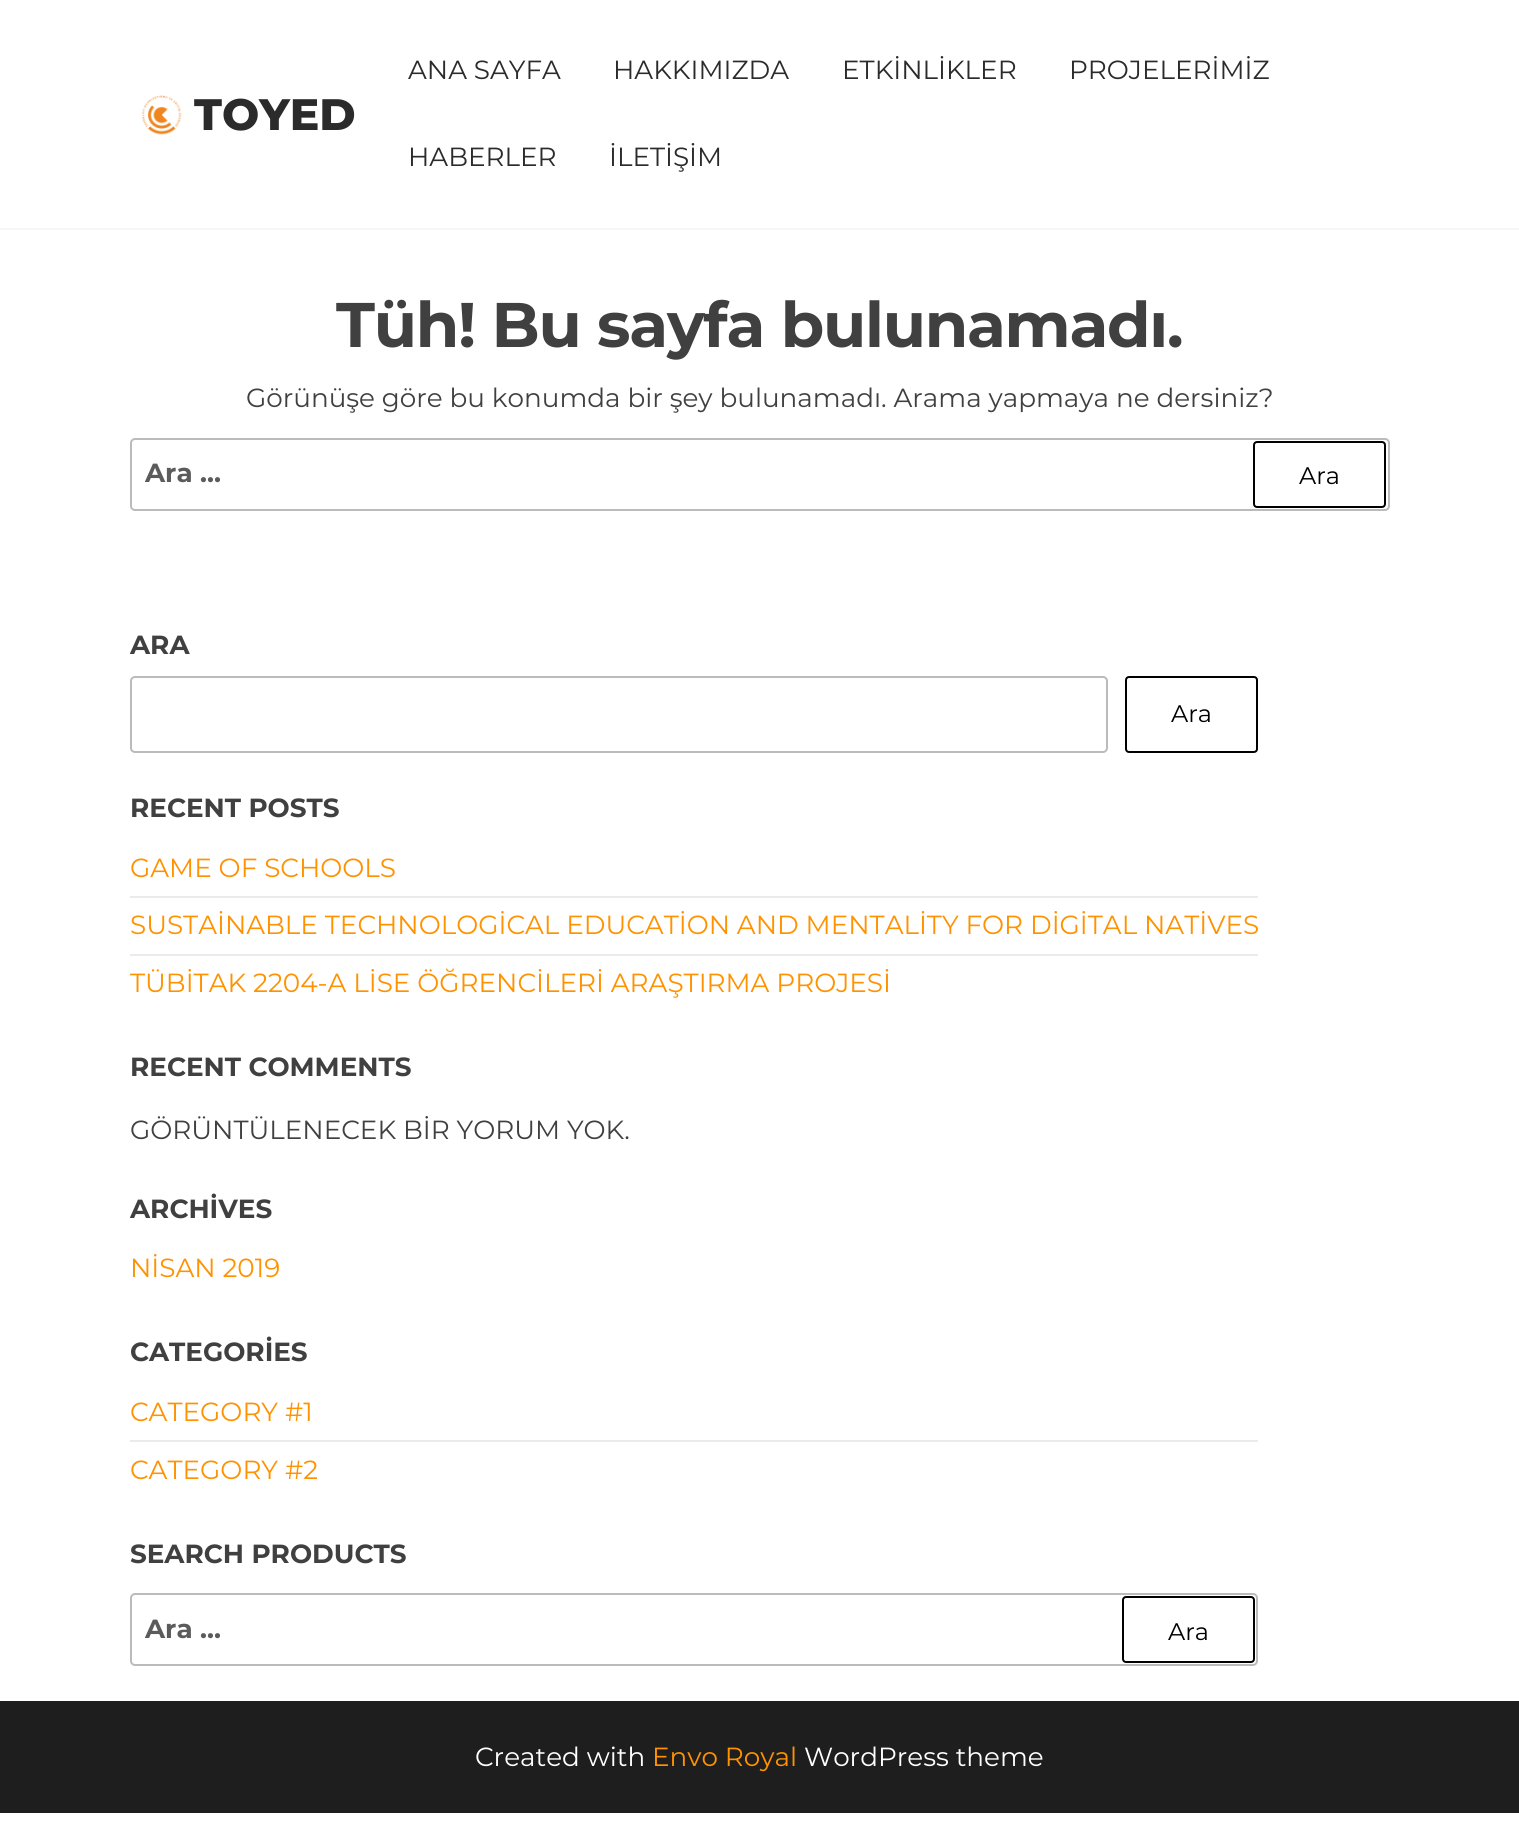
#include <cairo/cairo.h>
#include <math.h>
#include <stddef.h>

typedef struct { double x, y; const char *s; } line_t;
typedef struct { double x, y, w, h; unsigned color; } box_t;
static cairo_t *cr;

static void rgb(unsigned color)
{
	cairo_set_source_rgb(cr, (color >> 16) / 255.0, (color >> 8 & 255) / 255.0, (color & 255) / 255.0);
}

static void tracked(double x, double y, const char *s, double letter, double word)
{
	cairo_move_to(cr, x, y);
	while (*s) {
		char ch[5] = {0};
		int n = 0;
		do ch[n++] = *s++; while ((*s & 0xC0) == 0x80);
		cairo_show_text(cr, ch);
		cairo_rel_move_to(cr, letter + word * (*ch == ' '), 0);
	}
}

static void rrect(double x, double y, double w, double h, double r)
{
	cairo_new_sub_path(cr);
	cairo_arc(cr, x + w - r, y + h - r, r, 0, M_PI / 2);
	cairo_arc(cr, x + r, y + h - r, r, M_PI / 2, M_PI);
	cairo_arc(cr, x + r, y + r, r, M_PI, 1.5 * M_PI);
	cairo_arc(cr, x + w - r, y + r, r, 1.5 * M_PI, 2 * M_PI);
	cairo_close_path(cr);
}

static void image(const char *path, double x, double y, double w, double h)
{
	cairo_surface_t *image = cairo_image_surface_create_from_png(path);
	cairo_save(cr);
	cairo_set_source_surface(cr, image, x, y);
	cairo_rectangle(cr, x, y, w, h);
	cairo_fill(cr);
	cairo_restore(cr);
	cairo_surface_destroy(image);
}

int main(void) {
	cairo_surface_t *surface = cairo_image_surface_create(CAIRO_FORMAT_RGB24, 1519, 1826);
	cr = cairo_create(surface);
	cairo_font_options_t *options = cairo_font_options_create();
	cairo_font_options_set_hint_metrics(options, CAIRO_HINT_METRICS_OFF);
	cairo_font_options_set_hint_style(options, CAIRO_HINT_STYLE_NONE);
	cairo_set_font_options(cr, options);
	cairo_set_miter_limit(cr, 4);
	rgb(0xffffff);
	cairo_paint(cr);
	rgb(0xf6f6f6);
	cairo_rectangle(cr, 0, 228, 1519, 2);
	cairo_fill(cr);
	image("img/1.png", 141, 95, 41, 40);
	rrect(131, 439, 1258, 71, 4);
	rgb(0xbbbbbb);
	cairo_stroke(cr);
	rrect(1254, 442, 131, 65, 3);
	rgb(0x000000);
	cairo_stroke(cr);
	rrect(131, 677, 976, 75, 4);
	rgb(0xbbbbbb);
	cairo_stroke(cr);
	rrect(1126, 677, 131, 75, 3);
	rgb(0x000000);
	cairo_stroke(cr);
	{
		static const box_t items[] = {
			{130, 896, 1128, 2, 0xebebeb},
			{130, 954, 1128, 2, 0xebebeb},
			{130, 1440, 1128, 2, 0xebebeb},
		};
		for (size_t i = 0; i < sizeof items / sizeof *items; i++) {
			rgb(items[i].color);
			cairo_rectangle(cr, items[i].x, items[i].y, items[i].w, items[i].h);
			cairo_fill(cr);
		}
	}
	rrect(131, 1594, 1126, 71, 4);
	rgb(0xbbbbbb);
	cairo_stroke(cr);
	rrect(1123, 1597, 131, 65, 3);
	rgb(0x000000);
	cairo_stroke(cr);
	rgb(0x1e1e1e);
	cairo_rectangle(cr, 0, 1701, 1519, 112);
	cairo_fill(cr);
	cairo_select_font_face(cr, "Montserrat ExtraBold", CAIRO_FONT_SLANT_NORMAL, CAIRO_FONT_WEIGHT_NORMAL);
	cairo_set_font_size(cr, 44);
	rgb(0x2b2b2b);
	cairo_move_to(cr, 194, 130);
	cairo_show_text(cr, "TOYED");
	cairo_select_font_face(cr, "Montserrat", CAIRO_FONT_SLANT_NORMAL, CAIRO_FONT_WEIGHT_NORMAL);
	cairo_set_font_size(cr, 26.25);
	{
		static const line_t items[] = {
			{408, 79, "ANA SAYFA"},
			{613, 79, "HAKKIMIZDA"},
			{842, 79, "ETKİNLİKLER"},
			{1069, 79, "PROJELERİMİZ"},
			{408, 166, "HABERLER"},
			{609, 166, "İLETİŞİM"},
		};
		for (size_t i = 0; i < sizeof items / sizeof *items; i++) {
			cairo_move_to(cr, items[i].x, items[i].y);
			cairo_show_text(cr, items[i].s);
		}
	}
	cairo_select_font_face(cr, "Montserrat", CAIRO_FONT_SLANT_NORMAL, CAIRO_FONT_WEIGHT_BOLD);
	cairo_set_font_size(cr, 63);
	rgb(0x404040);
	tracked(336, 347, "Tüh! Bu sayfa bulunamadı.", -1.25, 0);
	cairo_select_font_face(cr, "Montserrat", CAIRO_FONT_SLANT_NORMAL, CAIRO_FONT_WEIGHT_NORMAL);
	cairo_set_font_size(cr, 26.25);
	cairo_move_to(cr, 246, 407);
	cairo_show_text(cr, "Görünüşe göre bu konumda bir şey bulunamadı. Arama yapmaya ne dersiniz?");
	cairo_select_font_face(cr, "Montserrat", CAIRO_FONT_SLANT_NORMAL, CAIRO_FONT_WEIGHT_BOLD);
	rgb(0x5b5b5b);
	cairo_move_to(cr, 145, 482);
	cairo_show_text(cr, "Ara …");
	cairo_select_font_face(cr, "Montserrat", CAIRO_FONT_SLANT_NORMAL, CAIRO_FONT_WEIGHT_NORMAL);
	cairo_set_font_size(cr, 24);
	rgb(0x000000);
	cairo_move_to(cr, 1299, 484);
	cairo_show_text(cr, "Ara");
	cairo_select_font_face(cr, "Montserrat", CAIRO_FONT_SLANT_NORMAL, CAIRO_FONT_WEIGHT_BOLD);
	cairo_set_font_size(cr, 26.25);
	rgb(0x404040);
	cairo_move_to(cr, 130, 654);
	cairo_show_text(cr, "ARA");
	cairo_select_font_face(cr, "Montserrat", CAIRO_FONT_SLANT_NORMAL, CAIRO_FONT_WEIGHT_NORMAL);
	cairo_set_font_size(cr, 24);
	rgb(0x000000);
	cairo_move_to(cr, 1171, 722);
	cairo_show_text(cr, "Ara");
	cairo_select_font_face(cr, "Montserrat", CAIRO_FONT_SLANT_NORMAL, CAIRO_FONT_WEIGHT_BOLD);
	cairo_set_font_size(cr, 26.25);
	rgb(0x404040);
	cairo_move_to(cr, 130, 817);
	cairo_show_text(cr, "RECENT POSTS");
	cairo_select_font_face(cr, "Montserrat", CAIRO_FONT_SLANT_NORMAL, CAIRO_FONT_WEIGHT_NORMAL);
	rgb(0xff9200);
	{
		static const line_t items[] = {
			{130, 877, "GAME OF SCHOOLS"},
			{130, 934, "SUSTAİNABLE TECHNOLOGİCAL EDUCATİON AND MENTALİTY FOR DİGİTAL NATİVES"},
			{130, 992, "TÜBİTAK 2204-A LİSE ÖĞRENCİLERİ ARAŞTIRMA PROJESİ"},
		};
		for (size_t i = 0; i < sizeof items / sizeof *items; i++) {
			cairo_move_to(cr, items[i].x, items[i].y);
			cairo_show_text(cr, items[i].s);
		}
	}
	cairo_select_font_face(cr, "Montserrat", CAIRO_FONT_SLANT_NORMAL, CAIRO_FONT_WEIGHT_BOLD);
	rgb(0x404040);
	cairo_move_to(cr, 130, 1076);
	cairo_show_text(cr, "RECENT COMMENTS");
	cairo_select_font_face(cr, "Montserrat", CAIRO_FONT_SLANT_NORMAL, CAIRO_FONT_WEIGHT_NORMAL);
	cairo_move_to(cr, 130, 1139);
	cairo_show_text(cr, "GÖRÜNTÜLENECEK BİR YORUM YOK.");
	cairo_select_font_face(cr, "Montserrat", CAIRO_FONT_SLANT_NORMAL, CAIRO_FONT_WEIGHT_BOLD);
	cairo_move_to(cr, 130, 1218);
	cairo_show_text(cr, "ARCHİVES");
	cairo_select_font_face(cr, "Montserrat", CAIRO_FONT_SLANT_NORMAL, CAIRO_FONT_WEIGHT_NORMAL);
	rgb(0xff9200);
	cairo_move_to(cr, 130, 1277);
	cairo_show_text(cr, "NİSAN 2019");
	cairo_select_font_face(cr, "Montserrat", CAIRO_FONT_SLANT_NORMAL, CAIRO_FONT_WEIGHT_BOLD);
	rgb(0x404040);
	cairo_move_to(cr, 130, 1361);
	cairo_show_text(cr, "CATEGORİES");
	cairo_select_font_face(cr, "Montserrat", CAIRO_FONT_SLANT_NORMAL, CAIRO_FONT_WEIGHT_NORMAL);
	rgb(0xff9200);
	cairo_move_to(cr, 130, 1421);
	cairo_show_text(cr, "CATEGORY #1");
	cairo_move_to(cr, 130, 1479);
	cairo_show_text(cr, "CATEGORY #2");
	cairo_select_font_face(cr, "Montserrat", CAIRO_FONT_SLANT_NORMAL, CAIRO_FONT_WEIGHT_BOLD);
	rgb(0x404040);
	cairo_move_to(cr, 130, 1563);
	cairo_show_text(cr, "SEARCH PRODUCTS");
	rgb(0x5b5b5b);
	cairo_move_to(cr, 145, 1638);
	cairo_show_text(cr, "Ara …");
	cairo_select_font_face(cr, "Montserrat", CAIRO_FONT_SLANT_NORMAL, CAIRO_FONT_WEIGHT_NORMAL);
	cairo_set_font_size(cr, 24);
	rgb(0x000000);
	cairo_move_to(cr, 1168, 1640);
	cairo_show_text(cr, "Ara");
	cairo_set_font_size(cr, 26.25);
	rgb(0xffffff);
	cairo_move_to(cr, 475, 1766);
	cairo_show_text(cr, "Created with");
	rgb(0xff9200);
	cairo_move_to(cr, 652, 1766);
	cairo_show_text(cr, "Envo Royal");
	rgb(0xffffff);
	cairo_move_to(cr, 804, 1766);
	cairo_show_text(cr, "WordPress theme");
	cairo_surface_write_to_png(surface, "page.png");
	cairo_font_options_destroy(options);
	cairo_destroy(cr);
	cairo_surface_destroy(surface);
	return 0;
}
